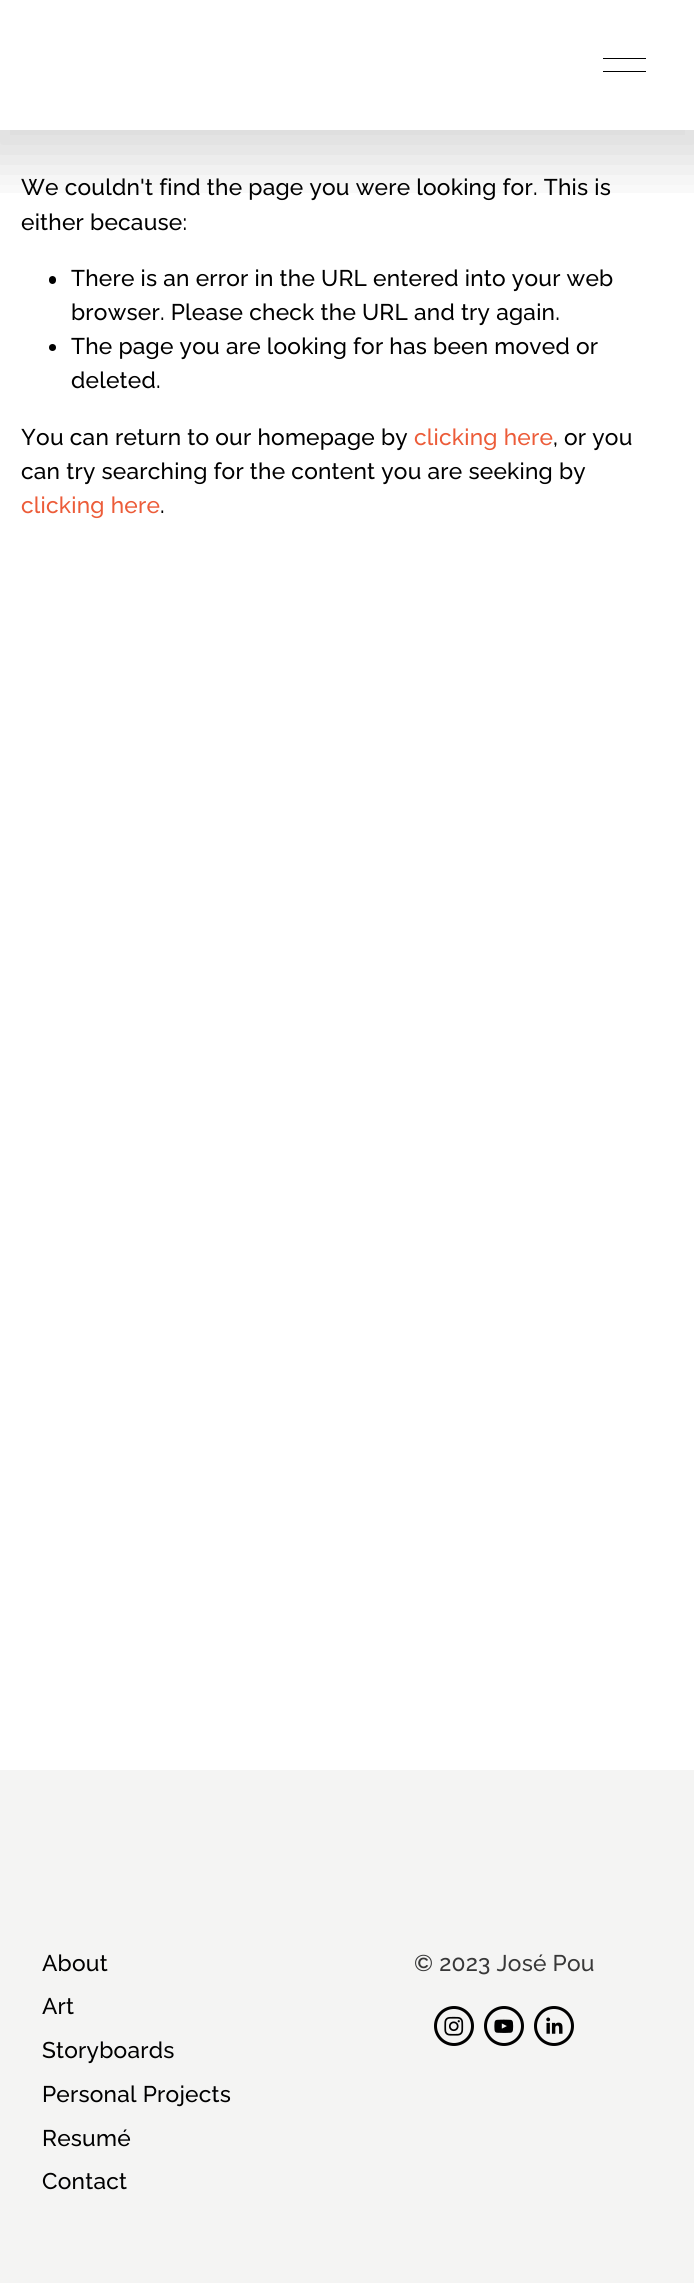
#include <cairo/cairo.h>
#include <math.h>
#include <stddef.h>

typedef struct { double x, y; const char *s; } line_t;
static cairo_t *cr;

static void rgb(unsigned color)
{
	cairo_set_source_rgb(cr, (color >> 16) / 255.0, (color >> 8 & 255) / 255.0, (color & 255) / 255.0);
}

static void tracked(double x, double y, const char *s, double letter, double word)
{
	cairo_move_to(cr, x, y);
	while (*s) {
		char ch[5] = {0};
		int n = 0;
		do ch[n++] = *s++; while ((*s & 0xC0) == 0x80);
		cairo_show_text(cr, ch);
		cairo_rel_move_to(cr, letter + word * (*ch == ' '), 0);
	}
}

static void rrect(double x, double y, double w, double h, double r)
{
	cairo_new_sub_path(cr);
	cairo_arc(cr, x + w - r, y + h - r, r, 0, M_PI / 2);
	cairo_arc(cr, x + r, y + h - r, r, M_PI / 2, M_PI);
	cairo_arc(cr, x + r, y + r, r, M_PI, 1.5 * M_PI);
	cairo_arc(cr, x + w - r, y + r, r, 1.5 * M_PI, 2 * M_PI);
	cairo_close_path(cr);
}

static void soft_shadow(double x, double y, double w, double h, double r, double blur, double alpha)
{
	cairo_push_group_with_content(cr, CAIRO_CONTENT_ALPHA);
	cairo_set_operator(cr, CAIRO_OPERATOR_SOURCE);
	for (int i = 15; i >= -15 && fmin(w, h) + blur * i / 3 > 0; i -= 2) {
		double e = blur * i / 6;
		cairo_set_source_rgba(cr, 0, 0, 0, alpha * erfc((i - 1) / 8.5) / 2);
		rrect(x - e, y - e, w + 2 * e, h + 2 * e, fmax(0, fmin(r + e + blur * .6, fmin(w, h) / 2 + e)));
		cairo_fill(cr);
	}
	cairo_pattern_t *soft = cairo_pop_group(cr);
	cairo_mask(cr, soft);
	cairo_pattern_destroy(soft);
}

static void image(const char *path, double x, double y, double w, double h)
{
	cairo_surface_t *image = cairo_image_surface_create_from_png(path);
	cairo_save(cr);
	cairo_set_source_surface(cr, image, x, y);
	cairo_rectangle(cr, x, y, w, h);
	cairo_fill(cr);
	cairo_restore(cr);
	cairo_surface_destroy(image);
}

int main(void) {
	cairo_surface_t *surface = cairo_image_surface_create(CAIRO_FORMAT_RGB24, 694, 2283);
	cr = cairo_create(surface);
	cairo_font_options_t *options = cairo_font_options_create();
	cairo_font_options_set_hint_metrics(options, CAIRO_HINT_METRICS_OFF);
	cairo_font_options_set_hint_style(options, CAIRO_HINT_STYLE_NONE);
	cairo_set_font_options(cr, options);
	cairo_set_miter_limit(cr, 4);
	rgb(0xffffff);
	cairo_paint(cr);
	cairo_save(cr);
	cairo_rectangle(cr, 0, 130, 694, 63);
	cairo_clip(cr);
	rgb(0x000000);
	soft_shadow(-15, 0, 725, 160, 0, 30, 0.15);
	cairo_restore(cr);
	rgb(0x000000);
	cairo_rectangle(cr, 603, 58, 43, 1);
	cairo_fill(cr);
	cairo_rectangle(cr, 603, 71, 43, 1);
	cairo_fill(cr);
	rrect(49, 276, 7, 8, 3.5);
	cairo_fill(cr);
	cairo_arc(cr, 52.5, 347.5, 3.5, 0, 2 * M_PI);
	cairo_fill(cr);
	rgb(0xf4f4f3);
	cairo_rectangle(cr, 0, 1770, 694, 513);
	cairo_fill(cr);
	cairo_arc(cr, 454, 2026, 18.5, 0, 2 * M_PI);
	rgb(0x000000);
	cairo_set_line_width(cr, 3);
	cairo_stroke(cr);
	image("img/1.png", 444, 2016, 20, 20);
	cairo_arc(cr, 504, 2026, 18.5, 0, 2 * M_PI);
	cairo_stroke(cr);
	image("img/2.png", 494, 2019, 20, 14);
	cairo_arc(cr, 554, 2026, 18.5, 0, 2 * M_PI);
	cairo_stroke(cr);
	image("img/3.png", 546, 2017, 17, 17);
	cairo_select_font_face(cr, "Raleway Medium", CAIRO_FONT_SLANT_NORMAL, CAIRO_FONT_WEIGHT_NORMAL);
	cairo_set_font_size(cr, 22.7);
	{
		static const line_t items[] = {
			{21, 195, "We couldn't find the page you were looking for. This is"},
			{21, 230, "either because:"},
			{71, 286, "There is an error in the URL entered into your web"},
			{71, 320, "browser. Please check the URL and try again."},
			{71, 354, "The page you are looking for has been moved or"},
			{71, 388, "deleted."},
			{21, 445, "You can return to our homepage by"},
		};
		for (size_t i = 0; i < sizeof items / sizeof *items; i++) {
			tracked(items[i].x, items[i].y, items[i].s, 0.23, 0);
		}
	}
	rgb(0xec5c39);
	tracked(414, 445, "clicking here", 0.23, 0);
	rgb(0x000000);
	tracked(553, 445, ", or you", 0.23, 0);
	tracked(21, 479, "can try searching for the content you are seeking by", 0.23, 0);
	rgb(0xec5c39);
	tracked(21, 513, "clicking here", 0.23, 0);
	rgb(0x000000);
	tracked(160, 513, ".", 0.23, 0);
	tracked(42, 1971, "About", 0.23, 0);
	rgb(0x383838);
	tracked(414, 1971, "© 2023 José Pou", 0.23, 0);
	rgb(0x000000);
	{
		static const line_t items[] = {
			{42, 2014, "Art"},
			{42, 2058, "Storyboards"},
			{42, 2102, "Personal Projects"},
			{42, 2146, "Resumé"},
			{42, 2189, "Contact"},
		};
		for (size_t i = 0; i < sizeof items / sizeof *items; i++) {
			tracked(items[i].x, items[i].y, items[i].s, 0.23, 0);
		}
	}
	cairo_surface_write_to_png(surface, "page.png");
	cairo_font_options_destroy(options);
	cairo_destroy(cr);
	cairo_surface_destroy(surface);
	return 0;
}
